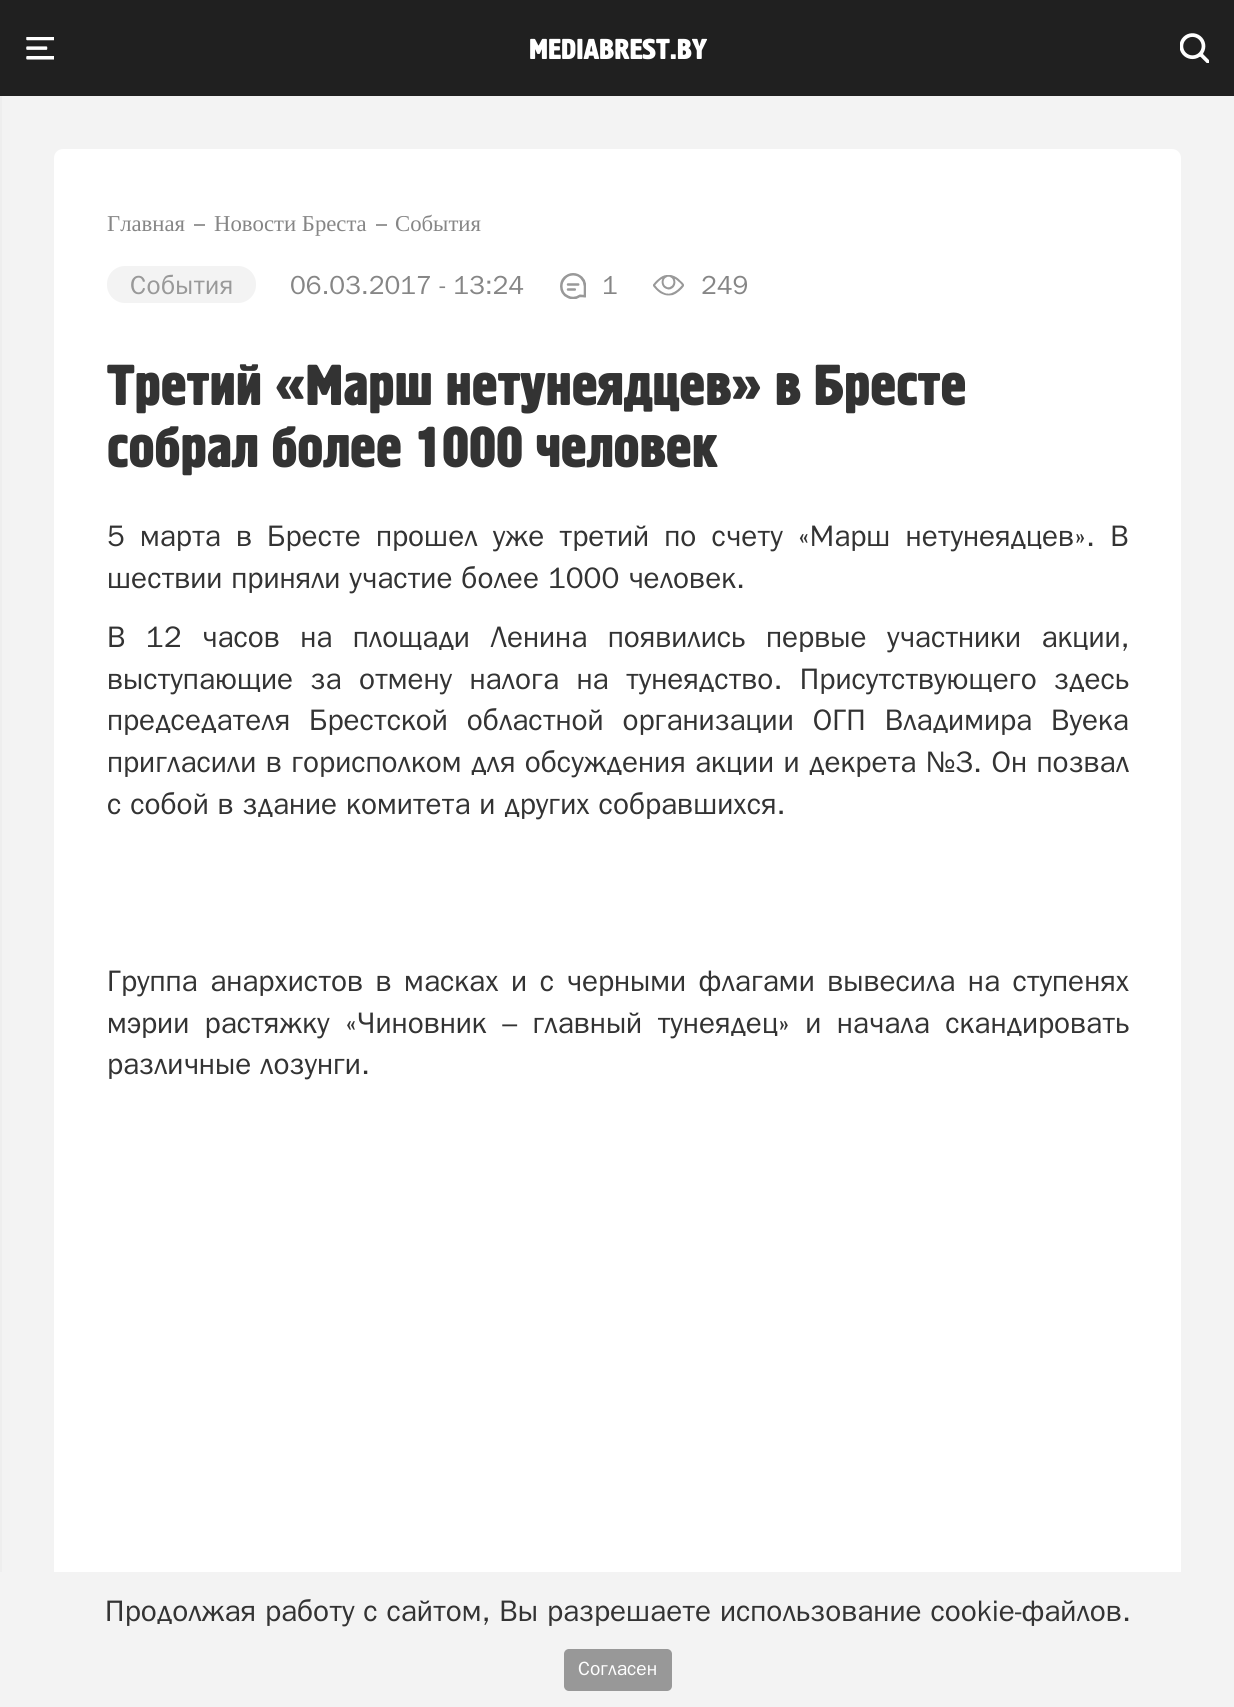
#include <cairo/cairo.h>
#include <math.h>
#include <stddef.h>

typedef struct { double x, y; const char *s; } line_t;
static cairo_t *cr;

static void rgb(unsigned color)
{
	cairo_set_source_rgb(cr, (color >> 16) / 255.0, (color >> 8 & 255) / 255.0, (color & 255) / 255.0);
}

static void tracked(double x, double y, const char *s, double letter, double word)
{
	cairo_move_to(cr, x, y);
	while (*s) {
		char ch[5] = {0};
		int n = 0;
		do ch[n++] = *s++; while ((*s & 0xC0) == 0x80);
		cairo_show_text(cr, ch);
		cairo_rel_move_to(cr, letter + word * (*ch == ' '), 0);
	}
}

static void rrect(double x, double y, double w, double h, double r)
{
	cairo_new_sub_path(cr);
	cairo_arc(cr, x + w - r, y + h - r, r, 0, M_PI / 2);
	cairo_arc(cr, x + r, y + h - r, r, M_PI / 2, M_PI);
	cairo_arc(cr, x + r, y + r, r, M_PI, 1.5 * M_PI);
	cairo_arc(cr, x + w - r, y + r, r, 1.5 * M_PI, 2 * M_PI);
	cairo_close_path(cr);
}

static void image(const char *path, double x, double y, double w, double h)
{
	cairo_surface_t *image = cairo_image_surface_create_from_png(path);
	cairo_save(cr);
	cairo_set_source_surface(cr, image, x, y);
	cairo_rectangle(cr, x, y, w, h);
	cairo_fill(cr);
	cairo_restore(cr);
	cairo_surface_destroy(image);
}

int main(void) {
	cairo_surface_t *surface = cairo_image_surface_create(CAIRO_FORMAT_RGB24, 1234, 1707);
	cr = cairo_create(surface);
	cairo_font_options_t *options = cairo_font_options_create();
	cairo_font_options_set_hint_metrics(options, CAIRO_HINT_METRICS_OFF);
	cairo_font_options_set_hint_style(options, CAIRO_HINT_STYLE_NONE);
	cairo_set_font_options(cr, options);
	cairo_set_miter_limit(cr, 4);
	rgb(0x202020);
	cairo_paint(cr);
	image("img/1.png", 26, 37, 28, 23);
	image("img/2.png", 1180, 33, 29, 30);
	rgb(0xf3f3f3);
	cairo_rectangle(cr, 2, 96, 1232, 1476);
	cairo_fill(cr);
	rgb(0xeeeeee);
	cairo_rectangle(cr, 0, 96, 2, 1476);
	cairo_fill(cr);
	rgb(0xffffff);
	rrect(54, 149, 1127, 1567, 9);
	cairo_fill(cr);
	rgb(0x999999);
	cairo_rectangle(cr, 194, 224, 11, 2);
	cairo_fill(cr);
	cairo_rectangle(cr, 376, 224, 11, 2);
	cairo_fill(cr);
	rgb(0xf3f3f3);
	rrect(107, 266, 149, 37, 18);
	cairo_fill(cr);
	image("img/3.png", 560, 273, 26, 26);
	image("img/4.png", 653, 275, 31, 21);
	cairo_rectangle(cr, 0, 1572, 1234, 135);
	cairo_fill(cr);
	rgb(0x989898);
	rrect(564, 1649, 108, 42, 5);
	cairo_fill(cr);
	cairo_select_font_face(cr, "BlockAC", CAIRO_FONT_SLANT_NORMAL, CAIRO_FONT_WEIGHT_NORMAL);
	cairo_set_font_size(cr, 28);
	rgb(0xffffff);
	cairo_move_to(cr, 529, 59);
	cairo_show_text(cr, "MEDIABREST.BY");
	cairo_select_font_face(cr, "Liberation Serif", CAIRO_FONT_SLANT_NORMAL, CAIRO_FONT_WEIGHT_NORMAL);
	cairo_set_font_size(cr, 22.75);
	rgb(0x868686);
	{
		static const line_t items[] = {
			{107, 231, "Главная"},
			{214, 231, "Новости Бреста"},
			{395, 231, "События"},
		};
		for (size_t i = 0; i < sizeof items / sizeof *items; i++) {
			cairo_move_to(cr, items[i].x, items[i].y);
			cairo_show_text(cr, items[i].s);
		}
	}
	cairo_select_font_face(cr, "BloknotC", CAIRO_FONT_SLANT_NORMAL, CAIRO_FONT_WEIGHT_NORMAL);
	cairo_set_font_size(cr, 26.25);
	rgb(0x999999);
	tracked(130, 294, "События", 0.25, 0);
	rgb(0x868686);
	{
		static const line_t items[] = {
			{290, 294, "06.03.2017 - 13:24"},
			{602, 294, "1"},
			{701, 294, "249"},
		};
		for (size_t i = 0; i < sizeof items / sizeof *items; i++) {
			cairo_move_to(cr, items[i].x, items[i].y);
			cairo_show_text(cr, items[i].s);
		}
	}
	cairo_select_font_face(cr, "BlockAC", CAIRO_FONT_SLANT_NORMAL, CAIRO_FONT_WEIGHT_NORMAL);
	cairo_set_font_size(cr, 56);
	rgb(0x333333);
	cairo_move_to(cr, 107, 405);
	cairo_show_text(cr, "Третий «Марш нетунеядцев» в Бресте");
	cairo_move_to(cr, 107, 467);
	cairo_show_text(cr, "собрал более 1000 человек");
	cairo_select_font_face(cr, "BloknotC", CAIRO_FONT_SLANT_NORMAL, CAIRO_FONT_WEIGHT_NORMAL);
	cairo_set_font_size(cr, 29.75);
	tracked(107, 546, "5 марта в Бресте прошел уже третий по счету «Марш нетунеядцев». В", 0, 6.25);
	cairo_move_to(cr, 107, 588);
	cairo_show_text(cr, "шествии приняли участие более 1000 человек.");
	tracked(107, 647, "В 12 часов на площади Ленина появились первые участники акции,", 0, 11.5);
	tracked(107, 689, "выступающие за отмену налога на тунеядство. Присутствующего здесь", 0, 8.5);
	tracked(107, 730, "председателя Брестской областной организации ОГП Владимира Вуека", 0, 10);
	tracked(107, 772, "пригласили в горисполком для обсуждения акции и декрета №3. Он позвал", 0, 0.5);
	cairo_move_to(cr, 107, 814);
	cairo_show_text(cr, "с собой в здание комитета и других собравшихся.");
	tracked(107, 991, "Группа анархистов в масках и с черными флагами вывесила на ступенях", 0, 3.6);
	tracked(107, 1033, "мэрии растяжку «Чиновник – главный тунеядец» и начала скандировать", 0, 6.5);
	cairo_move_to(cr, 107, 1074);
	cairo_show_text(cr, "различные лозунги.");
	cairo_move_to(cr, 105, 1621);
	cairo_show_text(cr, "Продолжая работу с сайтом, Вы разрешаете использование cookie-файлов.");
	cairo_set_font_size(cr, 19.25);
	rgb(0xffffff);
	cairo_move_to(cr, 578, 1675);
	cairo_show_text(cr, "Согласен");
	cairo_surface_write_to_png(surface, "page.png");
	cairo_font_options_destroy(options);
	cairo_destroy(cr);
	cairo_surface_destroy(surface);
	return 0;
}
